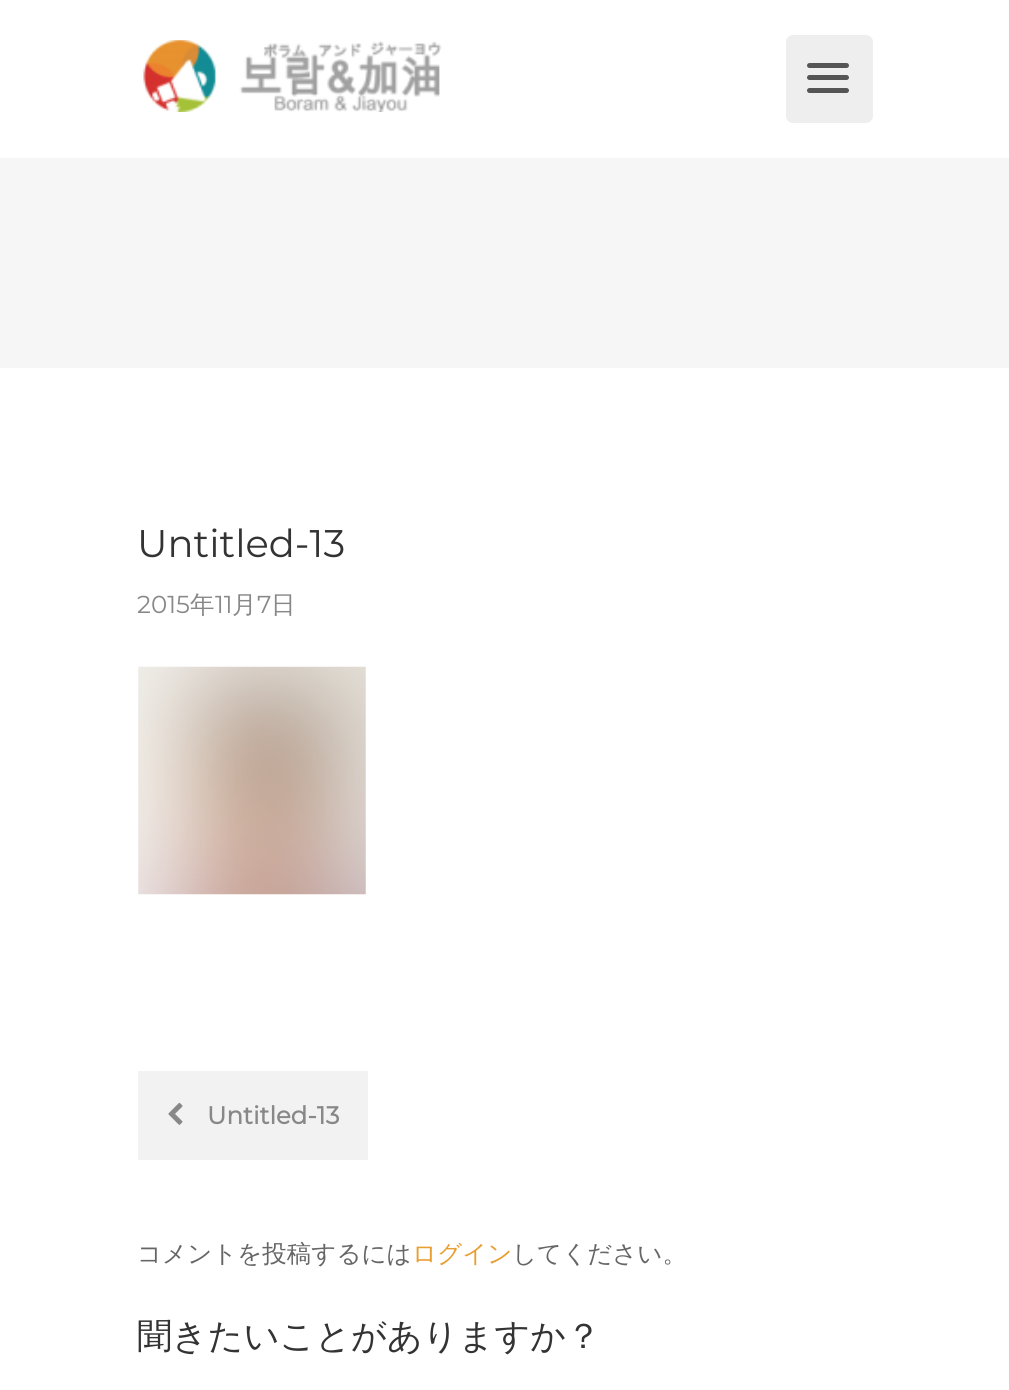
#include <cairo/cairo.h>
#include <math.h>
#include <stddef.h>

static cairo_t *cr;

static void rgb(unsigned color)
{
	cairo_set_source_rgb(cr, (color >> 16) / 255.0, (color >> 8 & 255) / 255.0, (color & 255) / 255.0);
}

static void rrect(double x, double y, double w, double h, double r)
{
	cairo_new_sub_path(cr);
	cairo_arc(cr, x + w - r, y + h - r, r, 0, M_PI / 2);
	cairo_arc(cr, x + r, y + h - r, r, M_PI / 2, M_PI);
	cairo_arc(cr, x + r, y + r, r, M_PI, 1.5 * M_PI);
	cairo_arc(cr, x + w - r, y + r, r, 1.5 * M_PI, 2 * M_PI);
	cairo_close_path(cr);
}

static void image(const char *path, double x, double y, double w, double h)
{
	cairo_surface_t *image = cairo_image_surface_create_from_png(path);
	cairo_save(cr);
	cairo_set_source_surface(cr, image, x, y);
	cairo_rectangle(cr, x, y, w, h);
	cairo_fill(cr);
	cairo_restore(cr);
	cairo_surface_destroy(image);
}

int main(void) {
	cairo_surface_t *surface = cairo_image_surface_create(CAIRO_FORMAT_RGB24, 1009, 1390);
	cr = cairo_create(surface);
	cairo_font_options_t *options = cairo_font_options_create();
	cairo_font_options_set_hint_metrics(options, CAIRO_HINT_METRICS_OFF);
	cairo_font_options_set_hint_style(options, CAIRO_HINT_STYLE_NONE);
	cairo_set_font_options(cr, options);
	cairo_set_miter_limit(cr, 4);
	rgb(0xffffff);
	cairo_paint(cr);
	image("img/1.png", 143, 40, 299, 72);
	rgb(0xeeeeee);
	rrect(786, 35, 87, 88, 7);
	cairo_fill(cr);
	rgb(0x555555);
	rrect(807, 88, 42, 5, 2.5);
	cairo_fill(cr);
	rrect(807, 63, 42, 5, 2.5);
	cairo_fill(cr);
	rrect(807, 75, 42, 5, 2.5);
	cairo_fill(cr);
	rgb(0xf6f6f6);
	cairo_rectangle(cr, 0, 158, 1009, 210);
	cairo_fill(cr);
	image("img/2.png", 138, 666, 228, 229);
	rgb(0xf2f2f2);
	cairo_rectangle(cr, 138, 1071, 230, 89);
	cairo_fill(cr);
	image("img/3.png", 168, 1102, 15, 23);
	cairo_select_font_face(cr, "Montserrat Thin", CAIRO_FONT_SLANT_NORMAL, CAIRO_FONT_WEIGHT_NORMAL);
	cairo_set_font_size(cr, 38.5);
	rgb(0x333333);
	cairo_move_to(cr, 137, 557);
	cairo_show_text(cr, "Untitled-13");
	cairo_set_font_size(cr, 24.5);
	rgb(0x888888);
	cairo_move_to(cr, 137, 613);
	cairo_show_text(cr, "2015");
	cairo_select_font_face(cr, "WenQuanYi Zen Hei Medium", CAIRO_FONT_SLANT_NORMAL, CAIRO_FONT_WEIGHT_NORMAL);
	cairo_move_to(cr, 190, 613);
	cairo_show_text(cr, "年");
	cairo_select_font_face(cr, "Montserrat Thin", CAIRO_FONT_SLANT_NORMAL, CAIRO_FONT_WEIGHT_NORMAL);
	cairo_move_to(cr, 215, 613);
	cairo_show_text(cr, "11");
	cairo_select_font_face(cr, "WenQuanYi Zen Hei Medium", CAIRO_FONT_SLANT_NORMAL, CAIRO_FONT_WEIGHT_NORMAL);
	cairo_move_to(cr, 232, 613);
	cairo_show_text(cr, "月");
	cairo_select_font_face(cr, "Montserrat Thin", CAIRO_FONT_SLANT_NORMAL, CAIRO_FONT_WEIGHT_NORMAL);
	cairo_move_to(cr, 257, 613);
	cairo_show_text(cr, "7");
	cairo_select_font_face(cr, "WenQuanYi Zen Hei Medium", CAIRO_FONT_SLANT_NORMAL, CAIRO_FONT_WEIGHT_NORMAL);
	cairo_move_to(cr, 271, 613);
	cairo_show_text(cr, "日");
	cairo_select_font_face(cr, "Montserrat", CAIRO_FONT_SLANT_NORMAL, CAIRO_FONT_WEIGHT_BOLD);
	cairo_move_to(cr, 207, 1124);
	cairo_show_text(cr, "Untitled-13");
	cairo_select_font_face(cr, "WenQuanYi Zen Hei Medium", CAIRO_FONT_SLANT_NORMAL, CAIRO_FONT_WEIGHT_NORMAL);
	rgb(0x666666);
	cairo_move_to(cr, 137, 1262);
	cairo_show_text(cr, "コメントを投稿するには");
	rgb(0xe89e30);
	cairo_move_to(cr, 412, 1262);
	cairo_show_text(cr, "ログイン");
	rgb(0x666666);
	cairo_move_to(cr, 512, 1262);
	cairo_show_text(cr, "してください。");
	cairo_set_font_size(cr, 35);
	rgb(0x333333);
	cairo_move_to(cr, 137, 1348);
	cairo_show_text(cr, "聞きたいことがありますか？");
	cairo_surface_write_to_png(surface, "page.png");
	cairo_font_options_destroy(options);
	cairo_destroy(cr);
	cairo_surface_destroy(surface);
	return 0;
}
